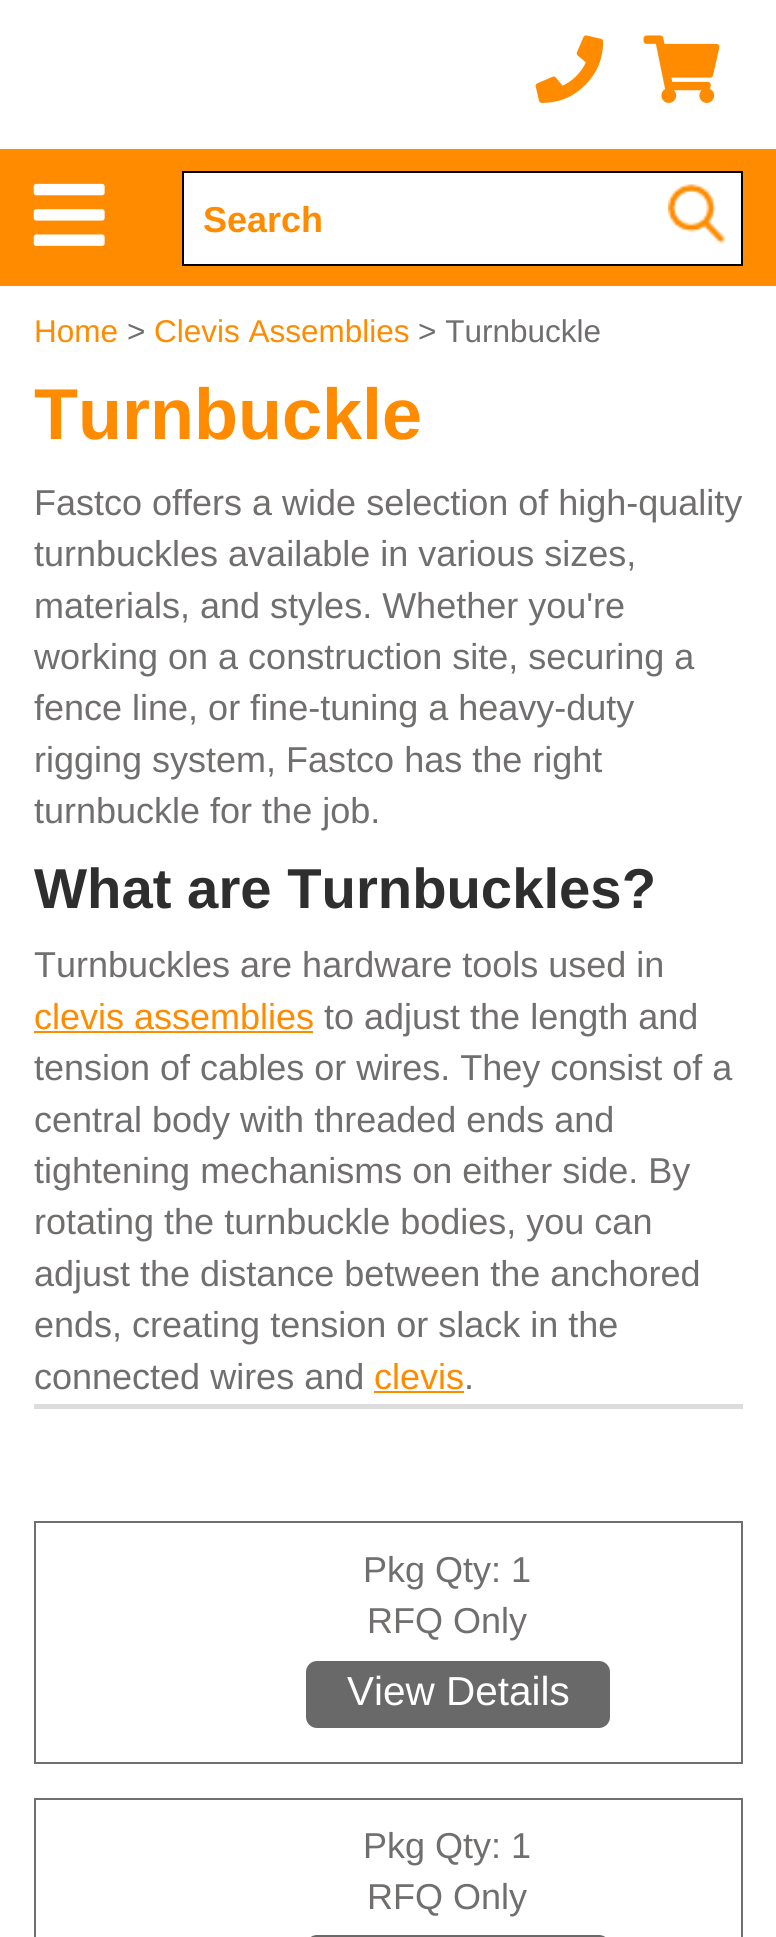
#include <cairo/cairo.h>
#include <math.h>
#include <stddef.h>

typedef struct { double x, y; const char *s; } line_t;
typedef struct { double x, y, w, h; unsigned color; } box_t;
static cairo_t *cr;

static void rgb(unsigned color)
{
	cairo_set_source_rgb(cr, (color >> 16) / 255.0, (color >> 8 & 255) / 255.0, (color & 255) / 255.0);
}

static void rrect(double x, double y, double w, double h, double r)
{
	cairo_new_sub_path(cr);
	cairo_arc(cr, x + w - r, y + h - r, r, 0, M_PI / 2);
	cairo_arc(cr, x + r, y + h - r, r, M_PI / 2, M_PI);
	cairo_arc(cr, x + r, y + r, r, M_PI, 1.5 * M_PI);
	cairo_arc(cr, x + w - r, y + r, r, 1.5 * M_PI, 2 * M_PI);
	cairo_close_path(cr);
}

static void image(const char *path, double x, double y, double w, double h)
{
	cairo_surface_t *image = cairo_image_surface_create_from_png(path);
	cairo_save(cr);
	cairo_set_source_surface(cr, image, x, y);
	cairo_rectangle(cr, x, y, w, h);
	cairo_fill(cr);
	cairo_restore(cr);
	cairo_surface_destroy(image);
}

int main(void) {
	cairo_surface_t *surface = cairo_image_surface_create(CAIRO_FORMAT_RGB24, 776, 1937);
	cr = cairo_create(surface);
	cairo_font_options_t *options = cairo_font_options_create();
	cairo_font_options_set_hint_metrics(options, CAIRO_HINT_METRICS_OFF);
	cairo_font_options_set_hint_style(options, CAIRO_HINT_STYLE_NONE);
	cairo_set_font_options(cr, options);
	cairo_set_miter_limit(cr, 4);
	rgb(0xffffff);
	cairo_paint(cr);
	image("img/1.png", 535, 35, 69, 68);
	image("img/2.png", 643, 35, 77, 68);
	rgb(0xff8b00);
	cairo_rectangle(cr, 0, 149, 776, 137);
	cairo_fill(cr);
	image("img/3.png", 33, 183, 72, 63);
	rgb(0xffffff);
	cairo_rectangle(cr, 183, 172, 559, 93);
	cairo_fill_preserve(cr);
	rgb(0x000000);
	cairo_stroke(cr);
	image("img/4.png", 668, 184, 58, 60);
	{
		static const box_t items[] = {
			{34, 1031, 279, 2, 0xff8b00},
			{374, 1391, 90, 2, 0xff8b00},
			{34, 1404, 709, 5, 0xdddddd},
		};
		for (size_t i = 0; i < sizeof items / sizeof *items; i++) {
			rgb(items[i].color);
			cairo_rectangle(cr, items[i].x, items[i].y, items[i].w, items[i].h);
			cairo_fill(cr);
		}
	}
	cairo_rectangle(cr, 35, 1522, 707, 241);
	rgb(0x716e6e);
	cairo_stroke(cr);
	rgb(0x696969);
	rrect(307, 1662, 302, 65, 10);
	cairo_fill_preserve(cr);
	cairo_stroke(cr);
	cairo_rectangle(cr, 35, 1799, 707, 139);
	rgb(0x716e6e);
	cairo_stroke(cr);
	rrect(307, 1936, 302, 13, 10);
	rgb(0x696969);
	cairo_stroke(cr);
	cairo_select_font_face(cr, "Liberation Sans", CAIRO_FONT_SLANT_NORMAL, CAIRO_FONT_WEIGHT_BOLD);
	cairo_set_font_size(cr, 36);
	rgb(0xff8b00);
	cairo_move_to(cr, 203, 232);
	cairo_show_text(cr, "Search");
	cairo_select_font_face(cr, "Liberation Sans", CAIRO_FONT_SLANT_NORMAL, CAIRO_FONT_WEIGHT_NORMAL);
	cairo_set_font_size(cr, 31.5);
	cairo_move_to(cr, 34, 342);
	cairo_show_text(cr, "Home");
	rgb(0x716e6e);
	cairo_move_to(cr, 127, 342);
	cairo_show_text(cr, ">");
	rgb(0xff8b00);
	cairo_move_to(cr, 154, 342);
	cairo_show_text(cr, "Clevis Assemblies");
	rgb(0x716e6e);
	cairo_move_to(cr, 418, 342);
	cairo_show_text(cr, "> Turnbuckle");
	cairo_select_font_face(cr, "Liberation Sans", CAIRO_FONT_SLANT_NORMAL, CAIRO_FONT_WEIGHT_BOLD);
	cairo_set_font_size(cr, 72);
	rgb(0xff8b00);
	cairo_move_to(cr, 34, 439);
	cairo_show_text(cr, "Turnbuckle");
	cairo_select_font_face(cr, "Liberation Sans", CAIRO_FONT_SLANT_NORMAL, CAIRO_FONT_WEIGHT_NORMAL);
	cairo_set_font_size(cr, 36);
	rgb(0x716e6e);
	{
		static const line_t items[] = {
			{34, 515, "Fastco offers a wide selection of high-quality"},
			{34, 566, "turnbuckles available in various sizes,"},
			{34, 618, "materials, and styles. Whether you're"},
			{34, 669, "working on a construction site, securing a"},
			{34, 720, "fence line, or fine-tuning a heavy-duty"},
			{34, 772, "rigging system, Fastco has the right"},
			{34, 823, "turnbuckle for the job."},
		};
		for (size_t i = 0; i < sizeof items / sizeof *items; i++) {
			cairo_move_to(cr, items[i].x, items[i].y);
			cairo_show_text(cr, items[i].s);
		}
	}
	cairo_select_font_face(cr, "Liberation Sans", CAIRO_FONT_SLANT_NORMAL, CAIRO_FONT_WEIGHT_BOLD);
	cairo_set_font_size(cr, 56.25);
	rgb(0x2f2e2e);
	cairo_move_to(cr, 34, 908);
	cairo_show_text(cr, "What are Turnbuckles?");
	cairo_select_font_face(cr, "Liberation Sans", CAIRO_FONT_SLANT_NORMAL, CAIRO_FONT_WEIGHT_NORMAL);
	cairo_set_font_size(cr, 36);
	rgb(0x716e6e);
	cairo_move_to(cr, 34, 977);
	cairo_show_text(cr, "Turnbuckles are hardware tools used in");
	rgb(0xff8b00);
	cairo_move_to(cr, 34, 1029);
	cairo_show_text(cr, "clevis assemblies");
	rgb(0x716e6e);
	{
		static const line_t items[] = {
			{324, 1029, "to adjust the length and"},
			{34, 1080, "tension of cables or wires. They consist of a"},
			{34, 1132, "central body with threaded ends and"},
			{34, 1183, "tightening mechanisms on either side. By"},
			{34, 1234, "rotating the turnbuckle bodies, you can"},
			{34, 1286, "adjust the distance between the anchored"},
			{34, 1337, "ends, creating tension or slack in the"},
			{34, 1389, "connected wires and"},
		};
		for (size_t i = 0; i < sizeof items / sizeof *items; i++) {
			cairo_move_to(cr, items[i].x, items[i].y);
			cairo_show_text(cr, items[i].s);
		}
	}
	rgb(0xff8b00);
	cairo_move_to(cr, 374, 1389);
	cairo_show_text(cr, "clevis");
	rgb(0x716e6e);
	{
		static const line_t items[] = {
			{464, 1389, "."},
			{363, 1582, "Pkg Qty: 1"},
			{367, 1633, "RFQ Only"},
		};
		for (size_t i = 0; i < sizeof items / sizeof *items; i++) {
			cairo_move_to(cr, items[i].x, items[i].y);
			cairo_show_text(cr, items[i].s);
		}
	}
	cairo_set_font_size(cr, 40.5);
	rgb(0xffffff);
	cairo_move_to(cr, 347, 1705);
	cairo_show_text(cr, "View Details");
	cairo_set_font_size(cr, 36);
	rgb(0x716e6e);
	cairo_move_to(cr, 363, 1858);
	cairo_show_text(cr, "Pkg Qty: 1");
	cairo_move_to(cr, 367, 1909);
	cairo_show_text(cr, "RFQ Only");
	cairo_surface_write_to_png(surface, "page.png");
	cairo_font_options_destroy(options);
	cairo_destroy(cr);
	cairo_surface_destroy(surface);
	return 0;
}
